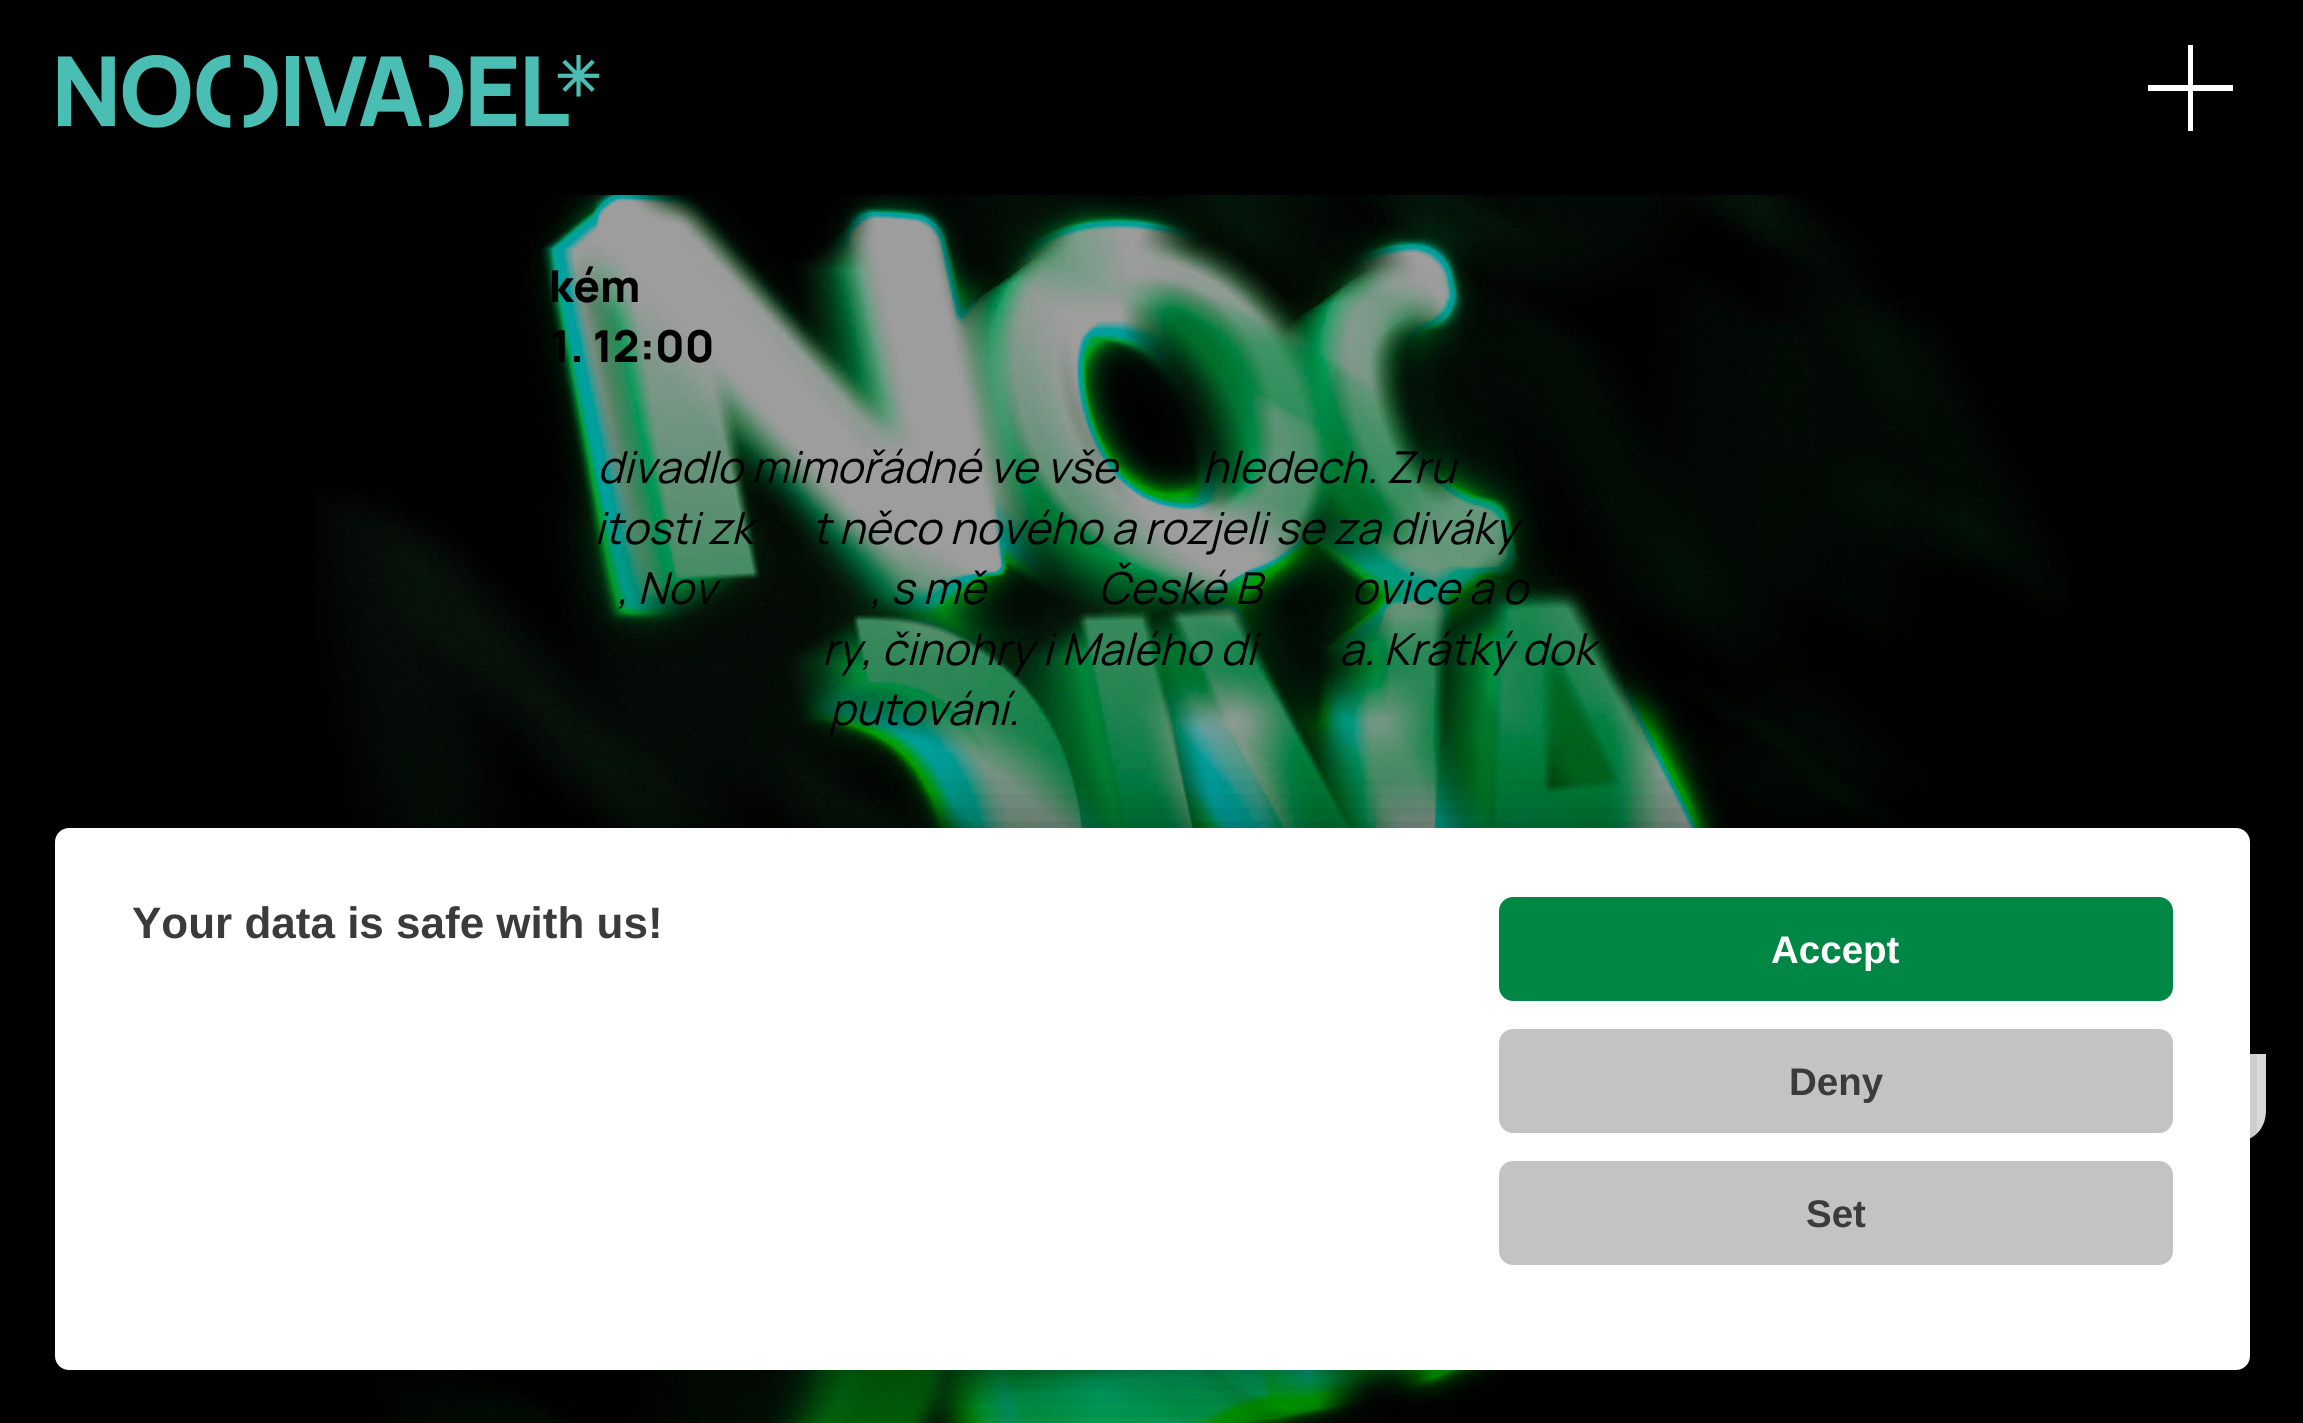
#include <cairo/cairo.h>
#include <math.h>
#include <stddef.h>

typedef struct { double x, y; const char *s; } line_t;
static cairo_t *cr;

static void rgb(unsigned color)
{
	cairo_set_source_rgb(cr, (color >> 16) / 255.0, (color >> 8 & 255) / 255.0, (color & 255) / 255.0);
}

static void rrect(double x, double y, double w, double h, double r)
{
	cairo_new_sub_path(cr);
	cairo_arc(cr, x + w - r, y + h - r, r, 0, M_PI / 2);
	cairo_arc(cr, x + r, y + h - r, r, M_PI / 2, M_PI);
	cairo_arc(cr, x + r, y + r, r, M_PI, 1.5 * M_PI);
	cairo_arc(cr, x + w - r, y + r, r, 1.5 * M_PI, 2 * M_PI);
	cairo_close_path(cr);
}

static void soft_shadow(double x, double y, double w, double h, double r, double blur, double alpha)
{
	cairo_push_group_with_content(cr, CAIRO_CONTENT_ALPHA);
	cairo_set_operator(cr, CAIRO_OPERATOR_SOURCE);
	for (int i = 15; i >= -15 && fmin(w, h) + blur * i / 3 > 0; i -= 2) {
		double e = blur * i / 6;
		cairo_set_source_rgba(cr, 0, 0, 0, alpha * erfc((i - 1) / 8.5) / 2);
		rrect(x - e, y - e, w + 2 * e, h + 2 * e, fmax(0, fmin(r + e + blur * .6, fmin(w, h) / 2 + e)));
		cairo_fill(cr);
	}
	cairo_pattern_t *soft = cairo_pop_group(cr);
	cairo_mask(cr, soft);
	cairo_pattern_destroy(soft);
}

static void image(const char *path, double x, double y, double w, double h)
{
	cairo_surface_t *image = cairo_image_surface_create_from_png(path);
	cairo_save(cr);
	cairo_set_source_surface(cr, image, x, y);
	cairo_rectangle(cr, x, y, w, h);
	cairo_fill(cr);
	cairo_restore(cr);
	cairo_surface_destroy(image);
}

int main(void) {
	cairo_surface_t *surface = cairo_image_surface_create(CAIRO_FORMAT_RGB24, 2303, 1423);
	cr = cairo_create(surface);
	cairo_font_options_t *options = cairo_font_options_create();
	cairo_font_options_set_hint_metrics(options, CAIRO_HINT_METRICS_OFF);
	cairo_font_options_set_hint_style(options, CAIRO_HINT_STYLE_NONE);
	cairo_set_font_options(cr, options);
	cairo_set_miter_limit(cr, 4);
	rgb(0x000000);
	cairo_paint(cr);
	image("img/1.png", 314, 195, 1753, 1228);
	image("img/2.png", 58, 55, 542, 73);
	rgb(0xffffff);
	cairo_rectangle(cr, 2148, 85, 85, 6);
	cairo_fill(cr);
	cairo_rectangle(cr, 2188, 45, 5, 86);
	cairo_fill(cr);
	cairo_new_path(cr);
	cairo_move_to(cr, 2266, 1054);
	cairo_line_to(cr, 2208, 1054);
	cairo_line_to(cr, 2208, 1110);
	cairo_curve_to(cr, 2208, 1127, 2217, 1139, 2233, 1141);
	cairo_line_to(cr, 2241, 1141);
	cairo_curve_to(cr, 2256, 1139, 2266, 1127, 2266, 1110);
	cairo_close_path(cr);
	cairo_fill(cr);
	rgb(0x000000);
	soft_shadow(55, 828, 2195, 542, 14, 41, 0.4);
	rgb(0xffffff);
	rrect(55, 828, 2195, 542, 14);
	cairo_fill(cr);
	rgb(0x008745);
	rrect(1499, 897, 674, 104, 14);
	cairo_fill(cr);
	rgb(0xc3c3c3);
	rrect(1499, 1029, 674, 104, 14);
	cairo_fill(cr);
	rrect(1499, 1161, 674, 104, 14);
	cairo_fill(cr);
	cairo_select_font_face(cr, "Manrope ExtraBold", CAIRO_FONT_SLANT_NORMAL, CAIRO_FONT_WEIGHT_NORMAL);
	cairo_set_font_size(cr, 44);
	rgb(0x000000);
	cairo_move_to(cr, 549, 302);
	cairo_show_text(cr, "kém");
	cairo_move_to(cr, 550, 362);
	cairo_show_text(cr, "1. 12:00");
	cairo_select_font_face(cr, "Manrope", CAIRO_FONT_SLANT_ITALIC, CAIRO_FONT_WEIGHT_NORMAL);
	{
		static const line_t items[] = {
			{597, 483, "divadlo mimořádné ve vše"},
			{1202, 483, "hledech. Zru"},
			{594, 544, "itosti zk"},
			{812, 544, "t něco nového a rozjeli se za diváky"},
			{617, 604, ", Nov"},
			{870, 604, ", s mě"},
			{1098, 604, "České B"},
			{1351, 604, "ovice a o"},
			{822, 665, "ry, činohry i Malého di"},
			{1339, 665, "a. Krátký dok"},
			{829, 725, "putování."},
		};
		for (size_t i = 0; i < sizeof items / sizeof *items; i++) {
			cairo_move_to(cr, items[i].x, items[i].y);
			cairo_show_text(cr, items[i].s);
		}
	}
	cairo_select_font_face(cr, "Liberation Sans", CAIRO_FONT_SLANT_NORMAL, CAIRO_FONT_WEIGHT_BOLD);
	rgb(0x3b3b3b);
	cairo_move_to(cr, 132, 938);
	cairo_show_text(cr, "Your data is safe with us!");
	cairo_set_font_size(cr, 38.5);
	rgb(0xffffff);
	cairo_move_to(cr, 1771, 963);
	cairo_show_text(cr, "Accept");
	rgb(0x3b3b3b);
	cairo_move_to(cr, 1789, 1095);
	cairo_show_text(cr, "Deny");
	cairo_move_to(cr, 1806, 1227);
	cairo_show_text(cr, "Set");
	cairo_surface_write_to_png(surface, "page.png");
	cairo_font_options_destroy(options);
	cairo_destroy(cr);
	cairo_surface_destroy(surface);
	return 0;
}
